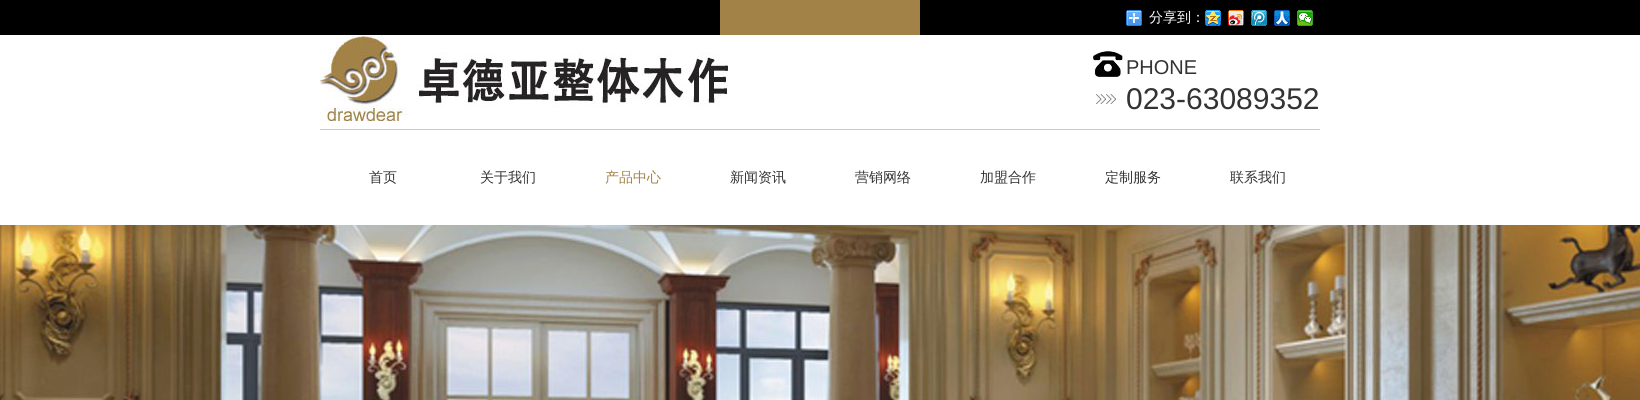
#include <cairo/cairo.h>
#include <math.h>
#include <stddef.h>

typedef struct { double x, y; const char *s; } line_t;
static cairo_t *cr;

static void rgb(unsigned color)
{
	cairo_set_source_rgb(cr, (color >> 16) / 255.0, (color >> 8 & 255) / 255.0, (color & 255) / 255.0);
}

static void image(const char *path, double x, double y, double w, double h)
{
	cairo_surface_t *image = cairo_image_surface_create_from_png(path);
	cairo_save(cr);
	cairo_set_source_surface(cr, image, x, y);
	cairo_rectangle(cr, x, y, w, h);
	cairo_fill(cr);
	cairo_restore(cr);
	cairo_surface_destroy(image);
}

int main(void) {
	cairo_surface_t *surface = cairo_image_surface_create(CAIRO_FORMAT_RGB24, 1640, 400);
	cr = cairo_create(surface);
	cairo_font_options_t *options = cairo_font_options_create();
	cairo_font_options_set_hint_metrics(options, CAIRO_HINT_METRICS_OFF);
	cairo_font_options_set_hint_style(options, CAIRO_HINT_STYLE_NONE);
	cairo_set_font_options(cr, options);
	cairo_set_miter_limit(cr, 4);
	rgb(0xffffff);
	cairo_paint(cr);
	rgb(0x000000);
	cairo_rectangle(cr, 0, 0, 1640, 35);
	cairo_fill(cr);
	rgb(0xa28246);
	cairo_rectangle(cr, 720, 0, 200, 35);
	cairo_fill(cr);
	image("img/1.png", 1126, 10, 16, 16);
	image("img/2.png", 1205, 10, 16, 16);
	image("img/3.png", 1228, 10, 16, 16);
	image("img/4.png", 1251, 10, 16, 16);
	image("img/5.png", 1274, 10, 16, 16);
	image("img/6.png", 1297, 10, 16, 16);
	rgb(0xcccccc);
	cairo_rectangle(cr, 320, 129, 1000, 1);
	cairo_fill(cr);
	image("img/7.png", 320, 36, 408, 85);
	image("img/8.png", 1093, 51, 30, 26);
	image("img/9.png", 1096, 94, 20, 10);
	image("img/10.png", 0, 225, 1640, 175);
	cairo_select_font_face(cr, "WenQuanYi Zen Hei Medium", CAIRO_FONT_SLANT_NORMAL, CAIRO_FONT_WEIGHT_NORMAL);
	cairo_set_font_size(cr, 14);
	rgb(0xffffff);
	cairo_move_to(cr, 1149, 22);
	cairo_show_text(cr, "分享到：");
	cairo_select_font_face(cr, "Liberation Sans", CAIRO_FONT_SLANT_NORMAL, CAIRO_FONT_WEIGHT_NORMAL);
	cairo_set_font_size(cr, 20);
	rgb(0x333333);
	cairo_move_to(cr, 1126, 74);
	cairo_show_text(cr, "PHONE");
	cairo_set_font_size(cr, 30);
	cairo_move_to(cr, 1126, 109);
	cairo_show_text(cr, "023-63089352");
	cairo_select_font_face(cr, "WenQuanYi Zen Hei Medium", CAIRO_FONT_SLANT_NORMAL, CAIRO_FONT_WEIGHT_NORMAL);
	cairo_set_font_size(cr, 14);
	cairo_move_to(cr, 369, 182);
	cairo_show_text(cr, "首页");
	cairo_move_to(cr, 480, 182);
	cairo_show_text(cr, "关于我们");
	rgb(0xa28246);
	cairo_move_to(cr, 605, 182);
	cairo_show_text(cr, "产品中心");
	rgb(0x333333);
	{
		static const line_t items[] = {
			{730, 182, "新闻资讯"},
			{855, 182, "营销网络"},
			{980, 182, "加盟合作"},
			{1105, 182, "定制服务"},
			{1230, 182, "联系我们"},
		};
		for (size_t i = 0; i < sizeof items / sizeof *items; i++) {
			cairo_move_to(cr, items[i].x, items[i].y);
			cairo_show_text(cr, items[i].s);
		}
	}
	cairo_surface_write_to_png(surface, "page.png");
	cairo_font_options_destroy(options);
	cairo_destroy(cr);
	cairo_surface_destroy(surface);
	return 0;
}
